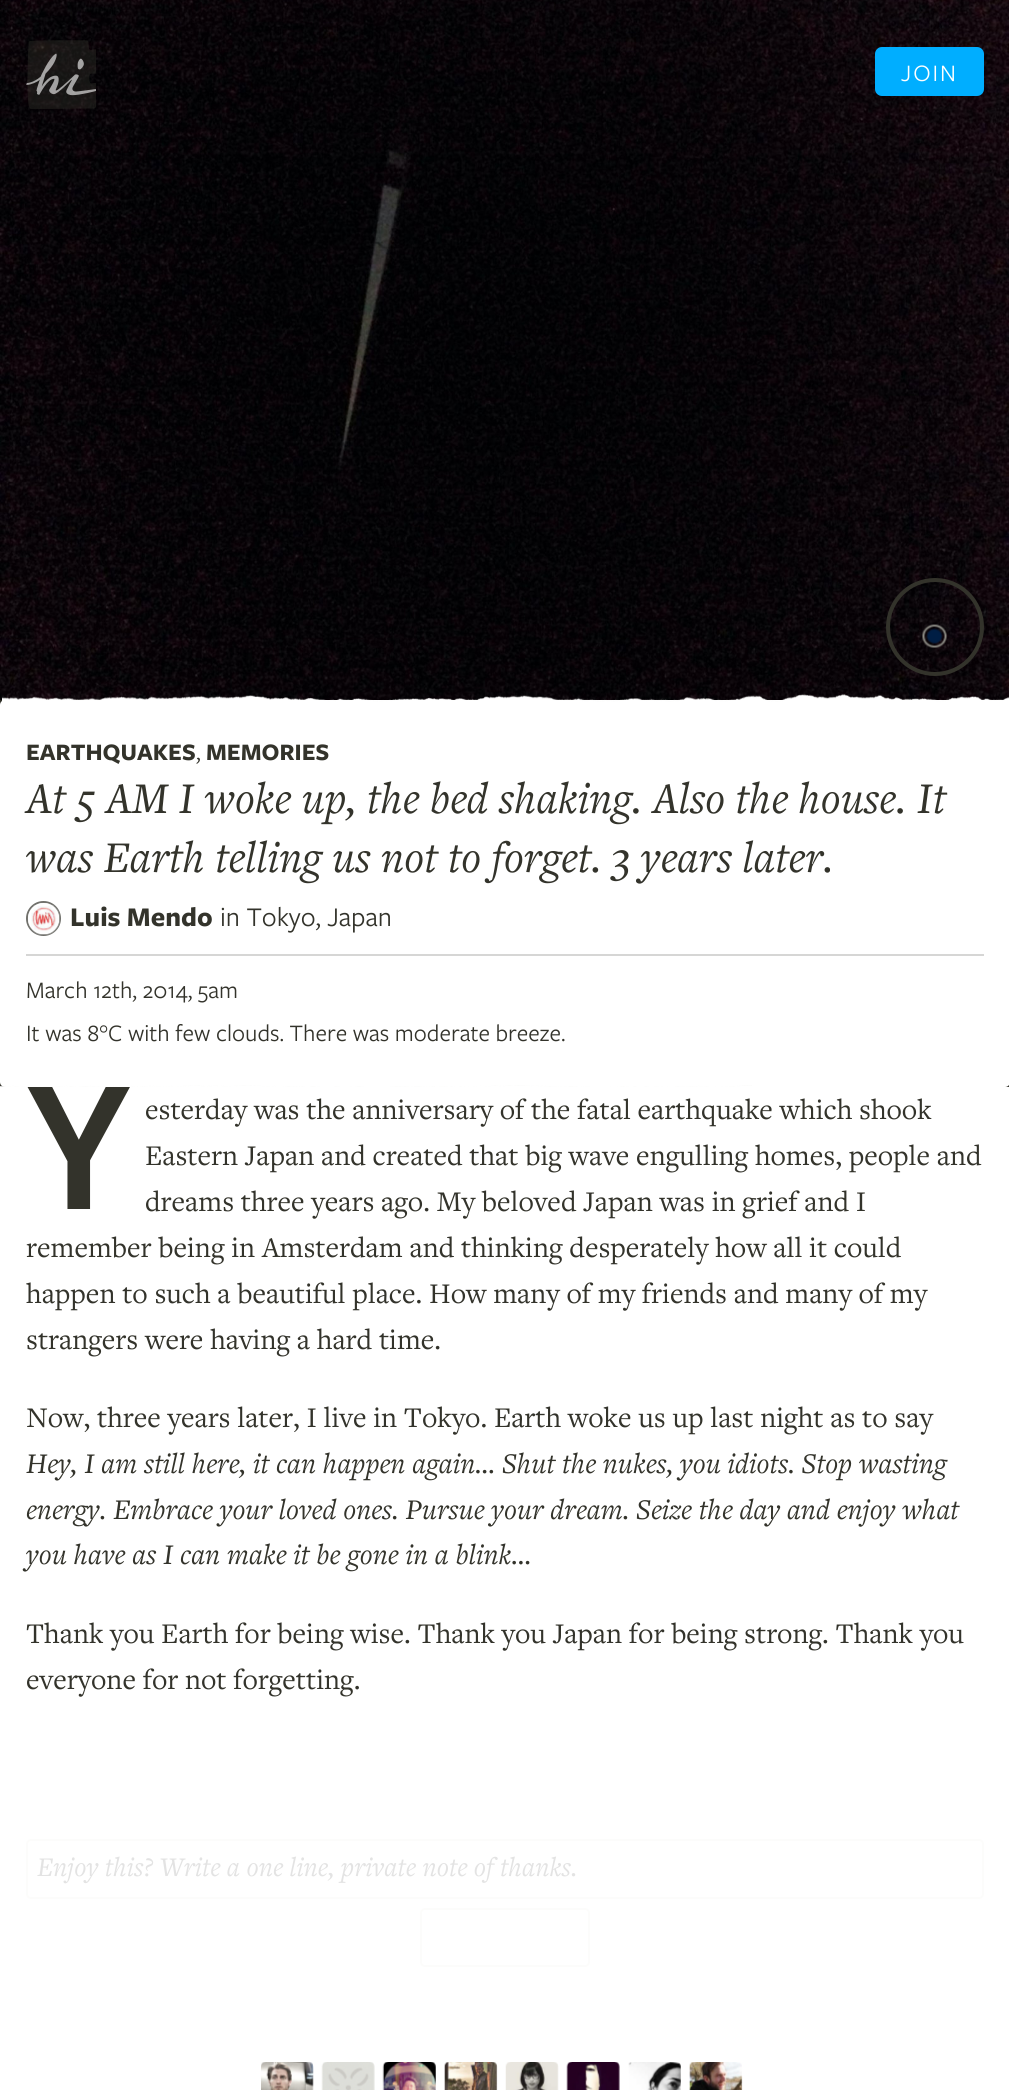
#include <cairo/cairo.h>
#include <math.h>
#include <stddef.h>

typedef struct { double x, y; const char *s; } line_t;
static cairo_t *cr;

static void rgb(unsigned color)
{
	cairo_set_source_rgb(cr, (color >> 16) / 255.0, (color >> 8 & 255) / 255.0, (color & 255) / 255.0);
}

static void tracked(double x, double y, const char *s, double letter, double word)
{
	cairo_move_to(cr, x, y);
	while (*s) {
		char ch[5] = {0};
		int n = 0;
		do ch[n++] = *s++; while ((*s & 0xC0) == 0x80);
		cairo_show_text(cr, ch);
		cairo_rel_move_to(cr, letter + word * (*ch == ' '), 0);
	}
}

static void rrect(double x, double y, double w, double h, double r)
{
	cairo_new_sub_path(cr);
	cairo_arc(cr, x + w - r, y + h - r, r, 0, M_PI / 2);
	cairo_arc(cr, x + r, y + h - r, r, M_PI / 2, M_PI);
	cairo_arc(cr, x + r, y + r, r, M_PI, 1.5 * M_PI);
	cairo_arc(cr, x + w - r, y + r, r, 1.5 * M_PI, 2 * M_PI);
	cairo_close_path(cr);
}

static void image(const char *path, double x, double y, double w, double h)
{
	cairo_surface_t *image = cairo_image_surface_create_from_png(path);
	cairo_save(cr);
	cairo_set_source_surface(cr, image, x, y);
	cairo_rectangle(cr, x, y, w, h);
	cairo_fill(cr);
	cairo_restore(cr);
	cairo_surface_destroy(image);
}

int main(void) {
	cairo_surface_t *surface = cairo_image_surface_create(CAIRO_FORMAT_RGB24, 1009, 2090);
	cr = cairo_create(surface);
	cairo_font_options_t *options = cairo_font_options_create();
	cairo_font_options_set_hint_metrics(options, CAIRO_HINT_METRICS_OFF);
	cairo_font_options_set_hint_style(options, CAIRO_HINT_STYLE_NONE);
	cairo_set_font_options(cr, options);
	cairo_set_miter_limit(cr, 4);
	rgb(0xffffff);
	cairo_paint(cr);
	image("img/2.png", 0, 0, 1009, 700);
	image("img/1.png", 26, 40, 70, 69);
	rgb(0x00aeff);
	rrect(875, 47, 109, 49, 7);
	cairo_fill(cr);
	rgb(0x33332b);
	cairo_rectangle(cr, 0, 700, 1009, 387);
	cairo_fill(cr);
	image("img/3.png", 922, 624, 25, 24);
	cairo_arc(cr, 935, 627, 47, 0, 2 * M_PI);
	cairo_set_line_width(cr, 4);
	cairo_stroke(cr);
	rrect(27, 1840, 956, 58, 4);
	rgb(0xfcfcfb);
	cairo_set_line_width(cr, 2);
	cairo_stroke(cr);
	rrect(421, 1909, 168, 57, 4);
	cairo_stroke(cr);
	image("img/7.png", 261, 2062, 53, 28);
	image("img/8.png", 321, 2062, 54, 28);
	image("img/9.png", 382, 2062, 54, 28);
	image("img/10.png", 444, 2062, 54, 28);
	image("img/11.png", 505, 2062, 54, 28);
	image("img/12.png", 566, 2062, 54, 28);
	image("img/13.png", 628, 2062, 53, 28);
	image("img/14.png", 689, 2062, 54, 28);
	cairo_select_font_face(cr, "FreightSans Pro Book", CAIRO_FONT_SLANT_NORMAL, CAIRO_FONT_WEIGHT_NORMAL);
	cairo_set_font_size(cr, 24.5);
	rgb(0xffffff);
	tracked(901, 81, "JOIN", 2, 0);
	cairo_select_font_face(cr, "Noto Sans SemiBold", CAIRO_FONT_SLANT_NORMAL, CAIRO_FONT_WEIGHT_NORMAL);
	cairo_set_font_size(cr, 175);
	rgb(0x33332b);
	cairo_move_to(cr, 26, 1209);
	cairo_show_text(cr, "Y");
	rgb(0xffffff);
	rrect(0, 700, 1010, 387, 5);
	cairo_fill(cr);
	image("img/4.png", 2, 693, 1007, 9);
	cairo_select_font_face(cr, "FreightSans Pro Book", CAIRO_FONT_SLANT_NORMAL, CAIRO_FONT_WEIGHT_NORMAL);
	cairo_set_font_size(cr, 24.5);
	rgb(0x33332b);
	cairo_move_to(cr, 26, 1041);
	cairo_show_text(cr, "It was 8°C with few clouds. There was moderate breeze.");
	cairo_move_to(cr, 26, 998);
	cairo_show_text(cr, "March 12th, 2014, 5am");
	cairo_set_font_size(cr, 28);
	cairo_move_to(cr, 220, 926);
	cairo_show_text(cr, "in Tokyo, Japan");
	cairo_select_font_face(cr, "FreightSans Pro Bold", CAIRO_FONT_SLANT_NORMAL, CAIRO_FONT_WEIGHT_BOLD);
	cairo_move_to(cr, 70, 926);
	cairo_show_text(cr, "Luis Mendo");
	cairo_new_path(cr);
	cairo_arc(cr, 43.5, 918.5, 16.5, 0, 2 * M_PI);
	rgb(0x70706b);
	cairo_stroke(cr);
	image("img/5.png", 27, 902, 33, 33);
	cairo_select_font_face(cr, "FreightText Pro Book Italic", CAIRO_FONT_SLANT_ITALIC, CAIRO_FONT_WEIGHT_NORMAL);
	cairo_set_font_size(cr, 45.5);
	rgb(0x33332b);
	cairo_move_to(cr, 26, 872);
	cairo_show_text(cr, "was Earth telling us not to forget. 3 years later.");
	cairo_move_to(cr, 26, 813);
	cairo_show_text(cr, "At 5 AM I woke up, the bed shaking. Also the house. It");
	cairo_select_font_face(cr, "FreightSans Pro Bold", CAIRO_FONT_SLANT_NORMAL, CAIRO_FONT_WEIGHT_BOLD);
	cairo_set_font_size(cr, 24.5);
	cairo_move_to(cr, 206, 760);
	cairo_show_text(cr, "MEMORIES");
	cairo_select_font_face(cr, "FreightSans Pro Book", CAIRO_FONT_SLANT_NORMAL, CAIRO_FONT_WEIGHT_NORMAL);
	cairo_move_to(cr, 196, 760);
	cairo_show_text(cr, ",");
	cairo_select_font_face(cr, "FreightSans Pro Bold", CAIRO_FONT_SLANT_NORMAL, CAIRO_FONT_WEIGHT_BOLD);
	cairo_move_to(cr, 26, 760);
	cairo_show_text(cr, "EARTHQUAKES");
	rgb(0xd6d6d5);
	cairo_rectangle(cr, 26, 954, 958, 2);
	cairo_fill(cr);
	image("img/6.png", 0, 1085, 752, 2);
	cairo_select_font_face(cr, "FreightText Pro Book", CAIRO_FONT_SLANT_NORMAL, CAIRO_FONT_WEIGHT_NORMAL);
	cairo_set_font_size(cr, 29.6);
	rgb(0x33332b);
	{
		static const line_t items[] = {
			{145, 1119, "esterday was the anniversary of the fatal earthquake which shook"},
			{145, 1165, "Eastern Japan and created that big wave engulling homes, people and"},
			{145, 1211, "dreams three years ago. My beloved Japan was in grief and I"},
			{26, 1257, "remember being in Amsterdam and thinking desperately how all it could"},
			{26, 1303, "happen to such a beautiful place. How many of my friends and many of my"},
			{26, 1349, "strangers were having a hard time."},
			{26, 1427, "Now, three years later, I live in Tokyo. Earth woke us up last night as to say"},
		};
		for (size_t i = 0; i < sizeof items / sizeof *items; i++) {
			cairo_move_to(cr, items[i].x, items[i].y);
			cairo_show_text(cr, items[i].s);
		}
	}
	cairo_select_font_face(cr, "FreightText Pro Book Italic", CAIRO_FONT_SLANT_ITALIC, CAIRO_FONT_WEIGHT_NORMAL);
	{
		static const line_t items[] = {
			{26, 1473, "Hey, I am still here, it can happen again… Shut the nukes, you idiots. Stop wasting"},
			{26, 1519, "energy. Embrace your loved ones. Pursue your dream. Seize the day and enjoy what"},
			{26, 1564, "you have as I can make it be gone in a blink…"},
		};
		for (size_t i = 0; i < sizeof items / sizeof *items; i++) {
			cairo_move_to(cr, items[i].x, items[i].y);
			cairo_show_text(cr, items[i].s);
		}
	}
	cairo_select_font_face(cr, "FreightText Pro Book", CAIRO_FONT_SLANT_NORMAL, CAIRO_FONT_WEIGHT_NORMAL);
	cairo_move_to(cr, 26, 1643);
	cairo_show_text(cr, "Thank you Earth for being wise. Thank you Japan for being strong. Thank you");
	cairo_move_to(cr, 26, 1689);
	cairo_show_text(cr, "everyone for not forgetting.");
	cairo_select_font_face(cr, "FreightText Pro Book Italic", CAIRO_FONT_SLANT_ITALIC, CAIRO_FONT_WEIGHT_NORMAL);
	cairo_set_font_size(cr, 28);
	rgb(0xe3e3e3);
	cairo_move_to(cr, 37, 1876);
	cairo_show_text(cr, "Enjoy this? Write a one line, private note of thanks.");
	cairo_surface_write_to_png(surface, "page.png");
	cairo_font_options_destroy(options);
	cairo_destroy(cr);
	cairo_surface_destroy(surface);
	return 0;
}
